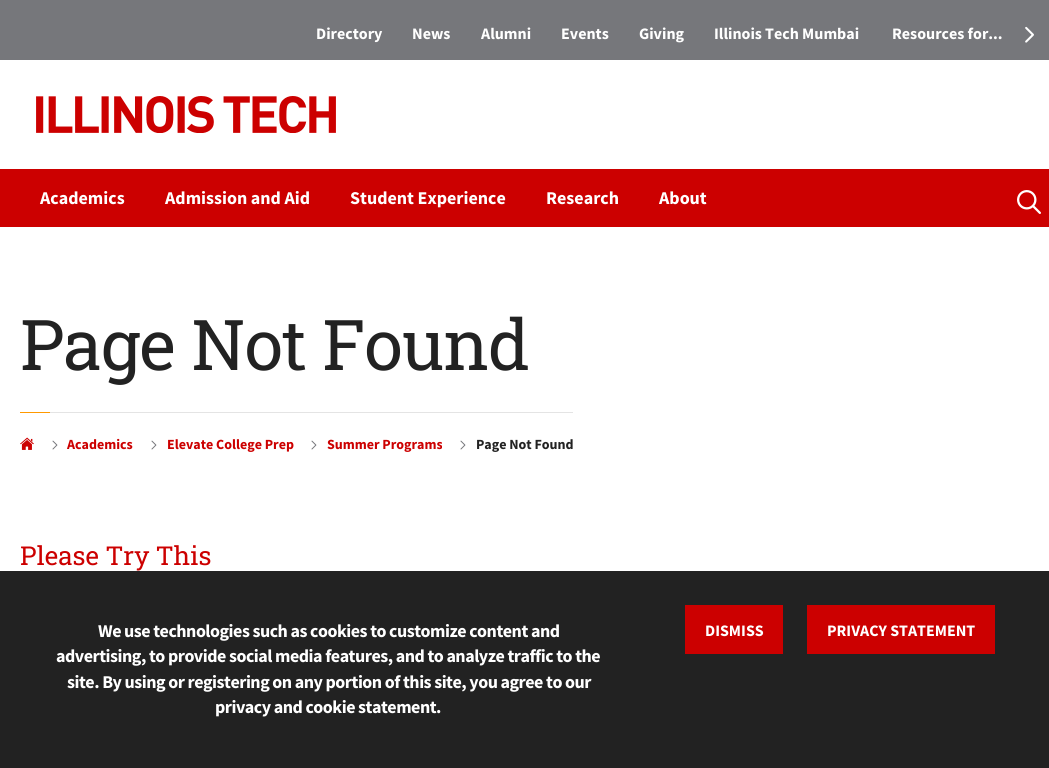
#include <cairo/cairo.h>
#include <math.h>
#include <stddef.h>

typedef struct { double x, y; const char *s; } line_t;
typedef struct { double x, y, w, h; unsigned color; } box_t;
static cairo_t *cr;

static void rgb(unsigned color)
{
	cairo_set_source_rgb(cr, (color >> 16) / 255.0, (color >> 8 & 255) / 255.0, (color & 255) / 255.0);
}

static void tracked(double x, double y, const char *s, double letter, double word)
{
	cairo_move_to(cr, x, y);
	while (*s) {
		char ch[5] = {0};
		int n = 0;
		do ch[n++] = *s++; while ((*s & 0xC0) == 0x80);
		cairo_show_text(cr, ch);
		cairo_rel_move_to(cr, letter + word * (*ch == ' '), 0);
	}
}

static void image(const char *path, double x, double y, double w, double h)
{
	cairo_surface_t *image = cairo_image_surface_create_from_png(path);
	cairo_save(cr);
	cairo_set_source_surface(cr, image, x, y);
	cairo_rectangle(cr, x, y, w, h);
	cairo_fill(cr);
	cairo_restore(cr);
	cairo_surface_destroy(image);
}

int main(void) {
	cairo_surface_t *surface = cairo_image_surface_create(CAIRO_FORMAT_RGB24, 1049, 768);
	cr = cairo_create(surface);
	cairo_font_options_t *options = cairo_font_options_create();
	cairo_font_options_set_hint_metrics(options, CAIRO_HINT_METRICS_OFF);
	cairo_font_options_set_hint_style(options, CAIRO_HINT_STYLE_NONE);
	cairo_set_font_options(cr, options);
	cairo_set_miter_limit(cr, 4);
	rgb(0xffffff);
	cairo_paint(cr);
	rgb(0x76777b);
	cairo_rectangle(cr, 0, 0, 1049, 60);
	cairo_fill(cr);
	image("img/1.png", 1025, 26, 9, 17);
	rgb(0xcc0000);
	cairo_rectangle(cr, 0, 169, 1049, 58);
	cairo_fill(cr);
	image("img/2.png", 1017, 190, 24, 24);
	image("img/3.png", 36, 96, 300, 37);
	rgb(0xff9900);
	cairo_rectangle(cr, 20, 412, 30, 1);
	cairo_fill(cr);
	rgb(0xe4e4e4);
	cairo_rectangle(cr, 50, 412, 523, 1);
	cairo_fill(cr);
	image("img/4.png", 20, 437, 14, 13);
	image("img/5.png", 52, 440, 6, 10);
	image("img/5.png", 151, 440, 6, 10);
	image("img/5.png", 311, 440, 6, 10);
	image("img/5.png", 460, 440, 6, 10);
	{
		static const box_t items[] = {
			{0, 571, 1049, 197, 0x222222},
			{685, 605, 98, 49, 0xcc0000},
			{807, 605, 188, 49, 0xcc0000},
		};
		for (size_t i = 0; i < sizeof items / sizeof *items; i++) {
			rgb(items[i].color);
			cairo_rectangle(cr, items[i].x, items[i].y, items[i].w, items[i].h);
			cairo_fill(cr);
		}
	}
	cairo_select_font_face(cr, "Source Sans Pro", CAIRO_FONT_SLANT_NORMAL, CAIRO_FONT_WEIGHT_BOLD);
	cairo_set_font_size(cr, 16);
	rgb(0xffffff);
	{
		static const line_t items[] = {
			{316, 39, "Directory"},
			{412, 39, "News"},
			{481, 39, "Alumni"},
			{561, 39, "Events"},
			{639, 39, "Giving"},
			{714, 39, "Illinois Tech Mumbai"},
			{892, 39, "Resources for..."},
		};
		for (size_t i = 0; i < sizeof items / sizeof *items; i++) {
			cairo_move_to(cr, items[i].x, items[i].y);
			cairo_show_text(cr, items[i].s);
		}
	}
	cairo_set_font_size(cr, 18);
	{
		static const line_t items[] = {
			{40, 204, "Academics"},
			{165, 204, "Admission and Aid"},
			{350, 204, "Student Experience"},
			{546, 204, "Research"},
			{659, 204, "About"},
		};
		for (size_t i = 0; i < sizeof items / sizeof *items; i++) {
			cairo_move_to(cr, items[i].x, items[i].y);
			cairo_show_text(cr, items[i].s);
		}
	}
	cairo_select_font_face(cr, "Roboto Slab", CAIRO_FONT_SLANT_NORMAL, CAIRO_FONT_WEIGHT_NORMAL);
	cairo_set_font_size(cr, 70);
	rgb(0x222222);
	tracked(20, 370, "Page Not Found", -1, 0);
	cairo_select_font_face(cr, "Source Sans Pro", CAIRO_FONT_SLANT_NORMAL, CAIRO_FONT_WEIGHT_BOLD);
	cairo_set_font_size(cr, 14);
	rgb(0xcc0000);
	{
		static const line_t items[] = {
			{67, 449, "Academics"},
			{167, 449, "Elevate College Prep"},
			{327, 449, "Summer Programs"},
		};
		for (size_t i = 0; i < sizeof items / sizeof *items; i++) {
			cairo_move_to(cr, items[i].x, items[i].y);
			cairo_show_text(cr, items[i].s);
		}
	}
	rgb(0x222222);
	cairo_move_to(cr, 476, 449);
	cairo_show_text(cr, "Page Not Found");
	cairo_select_font_face(cr, "Roboto Slab", CAIRO_FONT_SLANT_NORMAL, CAIRO_FONT_WEIGHT_NORMAL);
	cairo_set_font_size(cr, 26);
	rgb(0xcc0000);
	cairo_move_to(cr, 20, 565);
	cairo_show_text(cr, "Please Try This");
	cairo_select_font_face(cr, "Source Sans Pro", CAIRO_FONT_SLANT_NORMAL, CAIRO_FONT_WEIGHT_BOLD);
	cairo_set_font_size(cr, 18);
	rgb(0xffffff);
	{
		static const line_t items[] = {
			{98, 637, "We use technologies such as cookies to customize content and"},
			{56, 662, "advertising, to provide social media features, and to analyze traffic to the"},
			{67, 688, "site. By using or registering on any portion of this site, you agree to our"},
			{215, 713, "privacy and cookie statement."},
		};
		for (size_t i = 0; i < sizeof items / sizeof *items; i++) {
			tracked(items[i].x, items[i].y, items[i].s, -0.5, 0);
		}
	}
	cairo_set_font_size(cr, 16);
	cairo_move_to(cr, 705, 636);
	cairo_show_text(cr, "DISMISS");
	cairo_move_to(cr, 827, 636);
	cairo_show_text(cr, "PRIVACY STATEMENT");
	cairo_surface_write_to_png(surface, "page.png");
	cairo_font_options_destroy(options);
	cairo_destroy(cr);
	cairo_surface_destroy(surface);
	return 0;
}
